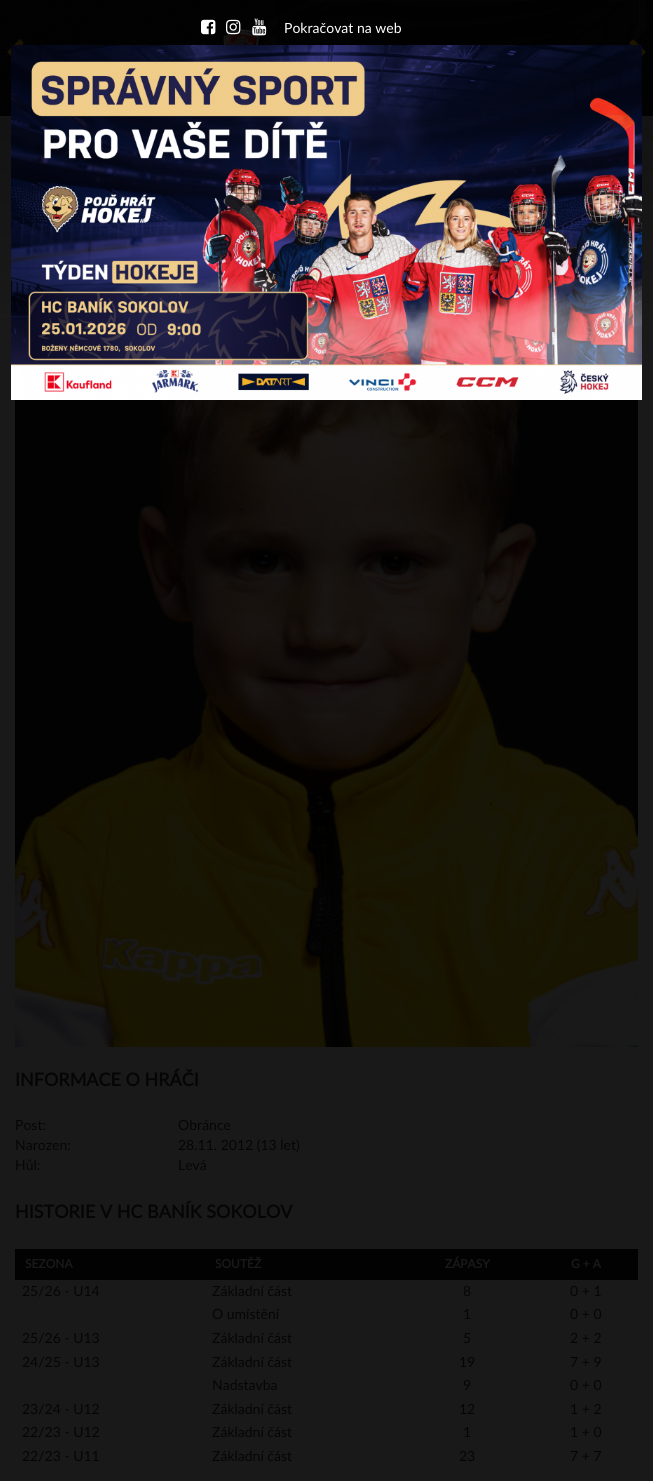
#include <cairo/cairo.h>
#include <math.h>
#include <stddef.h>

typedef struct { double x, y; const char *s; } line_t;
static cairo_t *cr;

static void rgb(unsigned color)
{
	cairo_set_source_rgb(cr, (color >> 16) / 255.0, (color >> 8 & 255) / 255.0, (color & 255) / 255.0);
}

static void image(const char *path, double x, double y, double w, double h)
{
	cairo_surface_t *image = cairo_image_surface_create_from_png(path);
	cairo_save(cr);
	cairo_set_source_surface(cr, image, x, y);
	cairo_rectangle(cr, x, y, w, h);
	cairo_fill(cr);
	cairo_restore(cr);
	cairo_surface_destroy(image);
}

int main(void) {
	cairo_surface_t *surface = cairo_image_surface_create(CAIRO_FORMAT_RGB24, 653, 1481);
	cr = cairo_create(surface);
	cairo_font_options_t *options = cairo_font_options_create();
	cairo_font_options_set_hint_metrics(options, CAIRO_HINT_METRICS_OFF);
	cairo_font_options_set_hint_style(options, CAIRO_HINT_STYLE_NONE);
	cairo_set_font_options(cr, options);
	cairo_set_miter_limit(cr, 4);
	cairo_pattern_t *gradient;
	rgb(0xffffff);
	cairo_paint(cr);
	image("img/1.png", 0, 0, 653, 315);
	image("img/2.png", 254, 0, 393, 45);
	cairo_set_source_rgba(cr, 0.008, 0.008, 0.008, 0.8);
	cairo_rectangle(cr, 277, 1, 357, 44);
	cairo_fill(cr);
	image("img/3.png", 223, 29, 36, 16);
	image("img/4.png", 7, 39, 17, 17);
	image("img/5.png", 629, 39, 17, 17);
	image("img/6.png", 201, 19, 15, 16);
	image("img/7.png", 226, 19, 15, 16);
	image("img/8.png", 252, 18, 15, 18);
	gradient = cairo_pattern_create_linear(326, 116, 327, 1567);
	cairo_pattern_add_color_stop_rgba(gradient, 0, 0.098, 0.098, 0.098, 0.75);
	cairo_pattern_add_color_stop_rgba(gradient, 0.14, 0.098, 0.098, 0.098, 1);
	cairo_set_source(cr, gradient);
	cairo_pattern_destroy(gradient);
	cairo_rectangle(cr, 0, 116, 653, 1365);
	cairo_fill(cr);
	image("img/9.png", 11, 45, 631, 355);
	image("img/10.png", 15, 400, 623, 647);
	rgb(0x020202);
	cairo_rectangle(cr, 15, 1249, 623, 31);
	cairo_fill(cr);
	cairo_select_font_face(cr, "Lato", CAIRO_FONT_SLANT_NORMAL, CAIRO_FONT_WEIGHT_NORMAL);
	cairo_set_font_size(cr, 14);
	rgb(0xffffff);
	cairo_move_to(cr, 284, 33);
	cairo_show_text(cr, "Pokračovat na web");
	cairo_select_font_face(cr, "Lato", CAIRO_FONT_SLANT_NORMAL, CAIRO_FONT_WEIGHT_BOLD);
	cairo_set_font_size(cr, 18);
	rgb(0x050505);
	cairo_move_to(cr, 15, 1086);
	cairo_show_text(cr, "INFORMACE O HRÁČI");
	cairo_select_font_face(cr, "Lato", CAIRO_FONT_SLANT_NORMAL, CAIRO_FONT_WEIGHT_NORMAL);
	cairo_set_font_size(cr, 14);
	{
		static const line_t items[] = {
			{15, 1130, "Post:"},
			{178, 1130, "Obránce"},
			{15, 1150, "Narozen:"},
			{178, 1150, "28.11. 2012 (13 let)"},
			{15, 1170, "Hůl:"},
			{178, 1170, "Levá"},
		};
		for (size_t i = 0; i < sizeof items / sizeof *items; i++) {
			cairo_move_to(cr, items[i].x, items[i].y);
			cairo_show_text(cr, items[i].s);
		}
	}
	cairo_select_font_face(cr, "Lato", CAIRO_FONT_SLANT_NORMAL, CAIRO_FONT_WEIGHT_BOLD);
	cairo_set_font_size(cr, 18);
	cairo_move_to(cr, 15, 1218);
	cairo_show_text(cr, "HISTORIE V HC BANÍK SOKOLOV");
	cairo_set_font_size(cr, 12);
	rgb(0x191919);
	{
		static const line_t items[] = {
			{25, 1268, "SEZONA"},
			{215, 1268, "SOUTĚŽ"},
			{445, 1268, "ZÁPASY"},
			{571, 1268, "G + A"},
		};
		for (size_t i = 0; i < sizeof items / sizeof *items; i++) {
			cairo_move_to(cr, items[i].x, items[i].y);
			cairo_show_text(cr, items[i].s);
		}
	}
	cairo_select_font_face(cr, "Lato", CAIRO_FONT_SLANT_NORMAL, CAIRO_FONT_WEIGHT_NORMAL);
	cairo_set_font_size(cr, 14);
	rgb(0x050505);
	{
		static const line_t items[] = {
			{22, 1296, "25/26 - U14"},
			{212, 1296, "Základní část"},
			{463, 1296, "8"},
			{570, 1296, "0 + 1"},
			{212, 1319, "O umístění"},
			{463, 1319, "1"},
			{570, 1319, "0 + 0"},
			{22, 1343, "25/26 - U13"},
			{212, 1343, "Základní část"},
			{463, 1343, "5"},
			{570, 1343, "2 + 2"},
			{22, 1367, "24/25 - U13"},
			{212, 1367, "Základní část"},
			{459, 1367, "19"},
			{570, 1367, "7 + 9"},
			{212, 1390, "Nadstavba"},
			{463, 1390, "9"},
			{570, 1390, "0 + 0"},
			{22, 1414, "23/24 - U12"},
			{212, 1414, "Základní část"},
			{459, 1414, "12"},
			{570, 1414, "1 + 2"},
			{22, 1437, "22/23 - U12"},
			{212, 1437, "Základní část"},
			{463, 1437, "1"},
			{570, 1437, "1 + 0"},
			{22, 1461, "22/23 - U11"},
			{212, 1461, "Základní část"},
			{459, 1461, "23"},
			{570, 1461, "7 + 7"},
		};
		for (size_t i = 0; i < sizeof items / sizeof *items; i++) {
			cairo_move_to(cr, items[i].x, items[i].y);
			cairo_show_text(cr, items[i].s);
		}
	}
	cairo_surface_write_to_png(surface, "page.png");
	cairo_font_options_destroy(options);
	cairo_destroy(cr);
	cairo_surface_destroy(surface);
	return 0;
}
